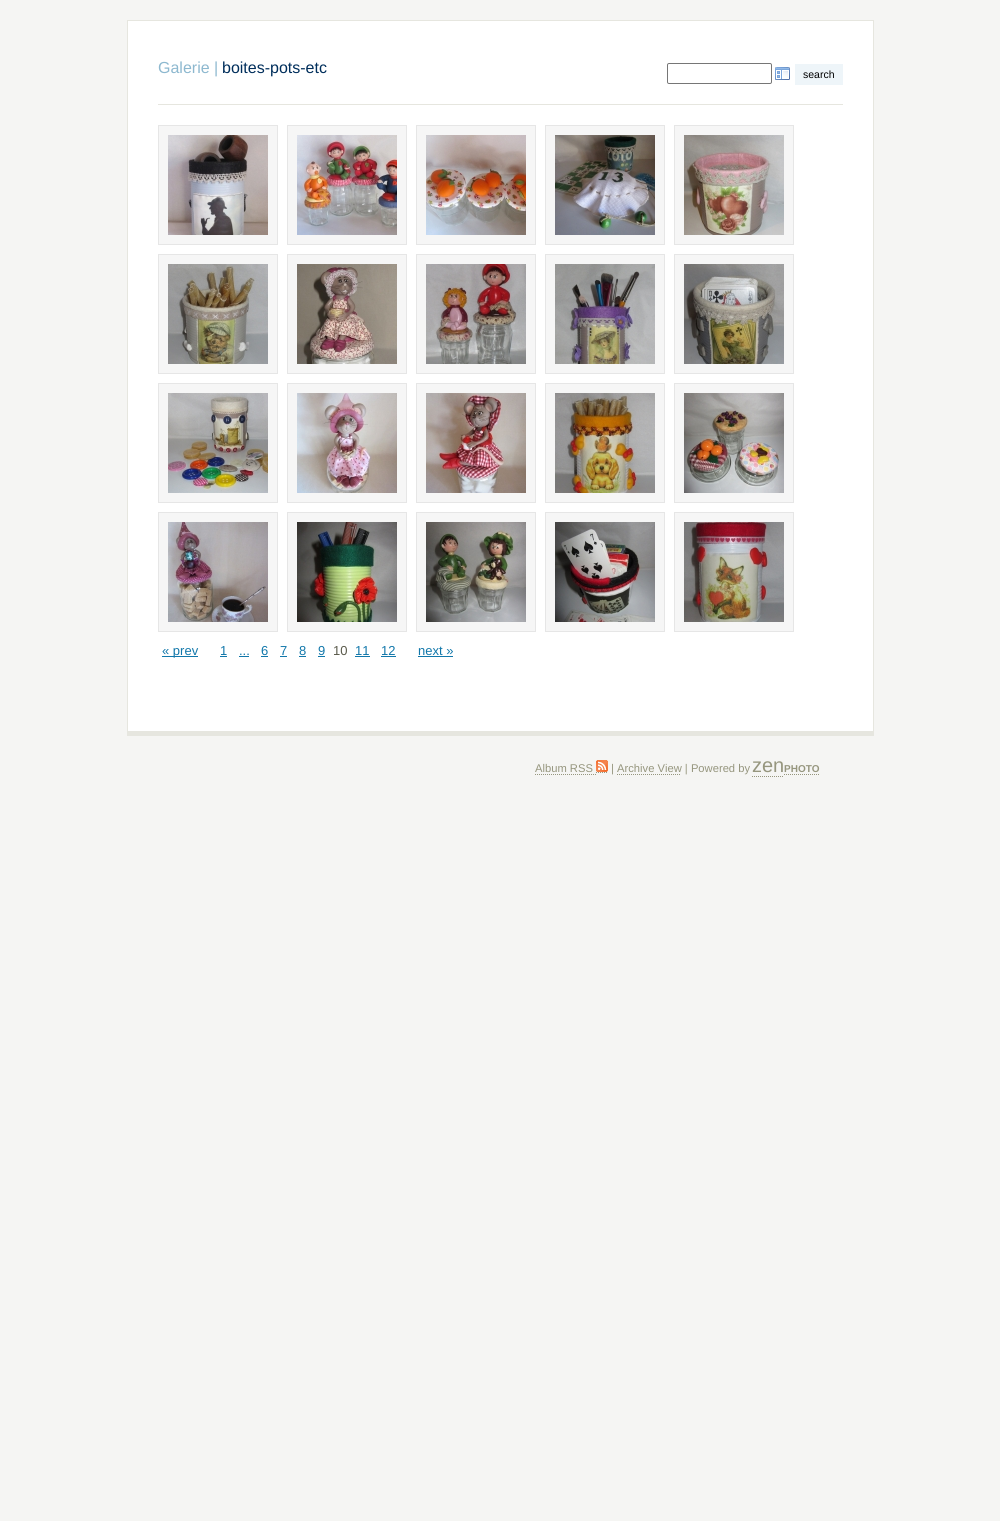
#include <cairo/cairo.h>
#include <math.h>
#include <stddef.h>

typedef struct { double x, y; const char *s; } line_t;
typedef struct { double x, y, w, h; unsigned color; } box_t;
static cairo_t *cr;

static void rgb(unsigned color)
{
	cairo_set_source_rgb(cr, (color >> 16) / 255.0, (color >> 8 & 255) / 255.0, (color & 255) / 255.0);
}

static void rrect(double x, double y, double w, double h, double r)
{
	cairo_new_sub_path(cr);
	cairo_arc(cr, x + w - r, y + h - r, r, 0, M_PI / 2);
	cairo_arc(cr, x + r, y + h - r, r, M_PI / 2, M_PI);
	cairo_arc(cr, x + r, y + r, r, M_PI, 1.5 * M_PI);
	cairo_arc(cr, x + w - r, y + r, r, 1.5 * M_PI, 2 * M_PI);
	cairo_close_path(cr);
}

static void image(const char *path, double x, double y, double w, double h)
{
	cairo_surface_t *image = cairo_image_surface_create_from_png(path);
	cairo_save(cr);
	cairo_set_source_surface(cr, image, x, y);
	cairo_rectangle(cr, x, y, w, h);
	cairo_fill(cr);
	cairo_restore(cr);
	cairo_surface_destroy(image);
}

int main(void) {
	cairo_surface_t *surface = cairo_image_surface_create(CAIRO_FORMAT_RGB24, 1000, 1521);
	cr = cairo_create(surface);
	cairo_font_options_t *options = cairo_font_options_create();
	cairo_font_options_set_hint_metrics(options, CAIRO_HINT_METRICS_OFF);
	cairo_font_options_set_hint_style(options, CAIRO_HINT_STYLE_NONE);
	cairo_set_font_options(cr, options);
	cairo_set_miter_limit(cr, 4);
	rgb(0xf5f5f3);
	cairo_paint(cr);
	{
		static const box_t items[] = {
			{128, 21, 745, 710, 0xffffff},
			{127, 20, 747, 1, 0xe6e6df},
			{873, 20, 1, 716, 0xe6e6df},
			{127, 731, 747, 5, 0xe6e6df},
			{127, 20, 1, 716, 0xe6e6df},
			{158, 104, 685, 1, 0xe6e6df},
		};
		for (size_t i = 0; i < sizeof items / sizeof *items; i++) {
			rgb(items[i].color);
			cairo_rectangle(cr, items[i].x, items[i].y, items[i].w, items[i].h);
			cairo_fill(cr);
		}
	}
	rrect(667.5, 63.5, 104, 20, 1.5);
	rgb(0x767676);
	cairo_set_line_width(cr, 1);
	cairo_stroke(cr);
	image("img/1.png", 775, 67, 15, 13);
	rgb(0xeef5f9);
	cairo_rectangle(cr, 795, 64, 48, 21);
	cairo_fill(cr);
	rgb(0xf6f6f6);
	cairo_rectangle(cr, 158.5, 125.5, 119, 119);
	cairo_fill_preserve(cr);
	rgb(0xe6e6e6);
	cairo_stroke(cr);
	image("img/2.png", 168, 135, 100, 100);
	rgb(0xf6f6f6);
	cairo_rectangle(cr, 287.5, 125.5, 119, 119);
	cairo_fill_preserve(cr);
	rgb(0xe6e6e6);
	cairo_stroke(cr);
	image("img/3.png", 297, 135, 100, 100);
	rgb(0xf6f6f6);
	cairo_rectangle(cr, 416.5, 125.5, 119, 119);
	cairo_fill_preserve(cr);
	rgb(0xe6e6e6);
	cairo_stroke(cr);
	image("img/4.png", 426, 135, 100, 100);
	rgb(0xf6f6f6);
	cairo_rectangle(cr, 545.5, 125.5, 119, 119);
	cairo_fill_preserve(cr);
	rgb(0xe6e6e6);
	cairo_stroke(cr);
	image("img/5.png", 555, 135, 100, 100);
	rgb(0xf6f6f6);
	cairo_rectangle(cr, 674.5, 125.5, 119, 119);
	cairo_fill_preserve(cr);
	rgb(0xe6e6e6);
	cairo_stroke(cr);
	image("img/6.png", 684, 135, 100, 100);
	rgb(0xf6f6f6);
	cairo_rectangle(cr, 158.5, 254.5, 119, 119);
	cairo_fill_preserve(cr);
	rgb(0xe6e6e6);
	cairo_stroke(cr);
	image("img/7.png", 168, 264, 100, 100);
	rgb(0xf6f6f6);
	cairo_rectangle(cr, 287.5, 254.5, 119, 119);
	cairo_fill_preserve(cr);
	rgb(0xe6e6e6);
	cairo_stroke(cr);
	image("img/8.png", 297, 264, 100, 100);
	rgb(0xf6f6f6);
	cairo_rectangle(cr, 416.5, 254.5, 119, 119);
	cairo_fill_preserve(cr);
	rgb(0xe6e6e6);
	cairo_stroke(cr);
	image("img/9.png", 426, 264, 100, 100);
	rgb(0xf6f6f6);
	cairo_rectangle(cr, 545.5, 254.5, 119, 119);
	cairo_fill_preserve(cr);
	rgb(0xe6e6e6);
	cairo_stroke(cr);
	image("img/10.png", 555, 264, 100, 100);
	rgb(0xf6f6f6);
	cairo_rectangle(cr, 674.5, 254.5, 119, 119);
	cairo_fill_preserve(cr);
	rgb(0xe6e6e6);
	cairo_stroke(cr);
	image("img/11.png", 684, 264, 100, 100);
	rgb(0xf6f6f6);
	cairo_rectangle(cr, 158.5, 383.5, 119, 119);
	cairo_fill_preserve(cr);
	rgb(0xe6e6e6);
	cairo_stroke(cr);
	image("img/12.png", 168, 393, 100, 100);
	rgb(0xf6f6f6);
	cairo_rectangle(cr, 287.5, 383.5, 119, 119);
	cairo_fill_preserve(cr);
	rgb(0xe6e6e6);
	cairo_stroke(cr);
	image("img/13.png", 297, 393, 100, 100);
	rgb(0xf6f6f6);
	cairo_rectangle(cr, 416.5, 383.5, 119, 119);
	cairo_fill_preserve(cr);
	rgb(0xe6e6e6);
	cairo_stroke(cr);
	image("img/14.png", 426, 393, 100, 100);
	rgb(0xf6f6f6);
	cairo_rectangle(cr, 545.5, 383.5, 119, 119);
	cairo_fill_preserve(cr);
	rgb(0xe6e6e6);
	cairo_stroke(cr);
	image("img/15.png", 555, 393, 100, 100);
	rgb(0xf6f6f6);
	cairo_rectangle(cr, 674.5, 383.5, 119, 119);
	cairo_fill_preserve(cr);
	rgb(0xe6e6e6);
	cairo_stroke(cr);
	image("img/16.png", 684, 393, 100, 100);
	rgb(0xf6f6f6);
	cairo_rectangle(cr, 158.5, 512.5, 119, 119);
	cairo_fill_preserve(cr);
	rgb(0xe6e6e6);
	cairo_stroke(cr);
	image("img/17.png", 168, 522, 100, 100);
	rgb(0xf6f6f6);
	cairo_rectangle(cr, 287.5, 512.5, 119, 119);
	cairo_fill_preserve(cr);
	rgb(0xe6e6e6);
	cairo_stroke(cr);
	image("img/18.png", 297, 522, 100, 100);
	rgb(0xf6f6f6);
	cairo_rectangle(cr, 416.5, 512.5, 119, 119);
	cairo_fill_preserve(cr);
	rgb(0xe6e6e6);
	cairo_stroke(cr);
	image("img/19.png", 426, 522, 100, 100);
	rgb(0xf6f6f6);
	cairo_rectangle(cr, 545.5, 512.5, 119, 119);
	cairo_fill_preserve(cr);
	rgb(0xe6e6e6);
	cairo_stroke(cr);
	image("img/20.png", 555, 522, 100, 100);
	rgb(0xf6f6f6);
	cairo_rectangle(cr, 674.5, 512.5, 119, 119);
	cairo_fill_preserve(cr);
	rgb(0xe6e6e6);
	cairo_stroke(cr);
	image("img/21.png", 684, 522, 100, 100);
	{
		static const box_t items[] = {
			{162, 656, 36, 1, 0x1177aa},
			{220, 656, 7, 1, 0x1177aa},
			{239, 656, 10, 1, 0x1177aa},
			{261, 656, 7, 1, 0x1177aa},
			{280, 656, 7, 1, 0x1177aa},
			{299, 656, 7, 1, 0x1177aa},
			{318, 656, 7, 1, 0x1177aa},
			{355, 656, 15, 1, 0x1177aa},
			{381, 656, 15, 1, 0x1177aa},
			{418, 656, 35, 1, 0x1177aa},
		};
		for (size_t i = 0; i < sizeof items / sizeof *items; i++) {
			rgb(items[i].color);
			cairo_rectangle(cr, items[i].x, items[i].y, items[i].w, items[i].h);
			cairo_fill(cr);
		}
	}
	cairo_new_path(cr);
	cairo_move_to(cr, 535, 774.5);
	cairo_line_to(cr, 596, 774.5);
	rgb(0x96967e);
	cairo_set_dash(cr, (double[]){1, 1}, 2, 0);
	cairo_stroke(cr);
	cairo_new_path(cr);
	cairo_move_to(cr, 596, 772.5);
	cairo_line_to(cr, 608, 772.5);
	cairo_stroke(cr);
	image("img/22.png", 596, 760, 12, 12);
	cairo_new_path(cr);
	cairo_move_to(cr, 752, 776.5);
	cairo_line_to(cr, 784, 776.5);
	cairo_stroke(cr);
	cairo_new_path(cr);
	cairo_move_to(cr, 784, 774.5);
	cairo_line_to(cr, 820, 774.5);
	cairo_stroke(cr);
	cairo_new_path(cr);
	cairo_move_to(cr, 617, 774.5);
	cairo_line_to(cr, 681, 774.5);
	cairo_stroke(cr);
	cairo_select_font_face(cr, "Liberation Sans", CAIRO_FONT_SLANT_NORMAL, CAIRO_FONT_WEIGHT_NORMAL);
	cairo_set_font_size(cr, 16);
	rgb(0x8db8cf);
	cairo_move_to(cr, 158, 73);
	cairo_show_text(cr, "Galerie |");
	rgb(0x002e5b);
	cairo_move_to(cr, 222, 73);
	cairo_show_text(cr, "boites-pots-etc");
	cairo_set_font_size(cr, 10.5);
	rgb(0x000000);
	cairo_move_to(cr, 803, 78);
	cairo_show_text(cr, "search");
	cairo_set_font_size(cr, 13);
	rgb(0x1177aa);
	{
		static const line_t items[] = {
			{162, 655, "« prev"},
			{220, 655, "1"},
			{239, 655, "..."},
			{261, 655, "6"},
			{280, 655, "7"},
			{299, 655, "8"},
			{318, 655, "9"},
		};
		for (size_t i = 0; i < sizeof items / sizeof *items; i++) {
			cairo_move_to(cr, items[i].x, items[i].y);
			cairo_show_text(cr, items[i].s);
		}
	}
	rgb(0x5a5a4b);
	cairo_move_to(cr, 333, 655);
	cairo_show_text(cr, "10");
	rgb(0x1177aa);
	{
		static const line_t items[] = {
			{355, 655, "11"},
			{381, 655, "12"},
			{418, 655, "next »"},
		};
		for (size_t i = 0; i < sizeof items / sizeof *items; i++) {
			cairo_move_to(cr, items[i].x, items[i].y);
			cairo_show_text(cr, items[i].s);
		}
	}
	cairo_set_font_size(cr, 11.2);
	rgb(0x96967e);
	cairo_move_to(cr, 535, 772);
	cairo_show_text(cr, "Album RSS");
	cairo_move_to(cr, 611, 772);
	cairo_show_text(cr, "| Archive View | Powered by");
	cairo_set_font_size(cr, 20);
	cairo_move_to(cr, 752, 772);
	cairo_show_text(cr, "zen");
	cairo_select_font_face(cr, "Liberation Sans", CAIRO_FONT_SLANT_NORMAL, CAIRO_FONT_WEIGHT_BOLD);
	cairo_set_font_size(cr, 10);
	cairo_move_to(cr, 784, 772);
	cairo_show_text(cr, "PHOTO");
	cairo_surface_write_to_png(surface, "page.png");
	cairo_font_options_destroy(options);
	cairo_destroy(cr);
	cairo_surface_destroy(surface);
	return 0;
}
